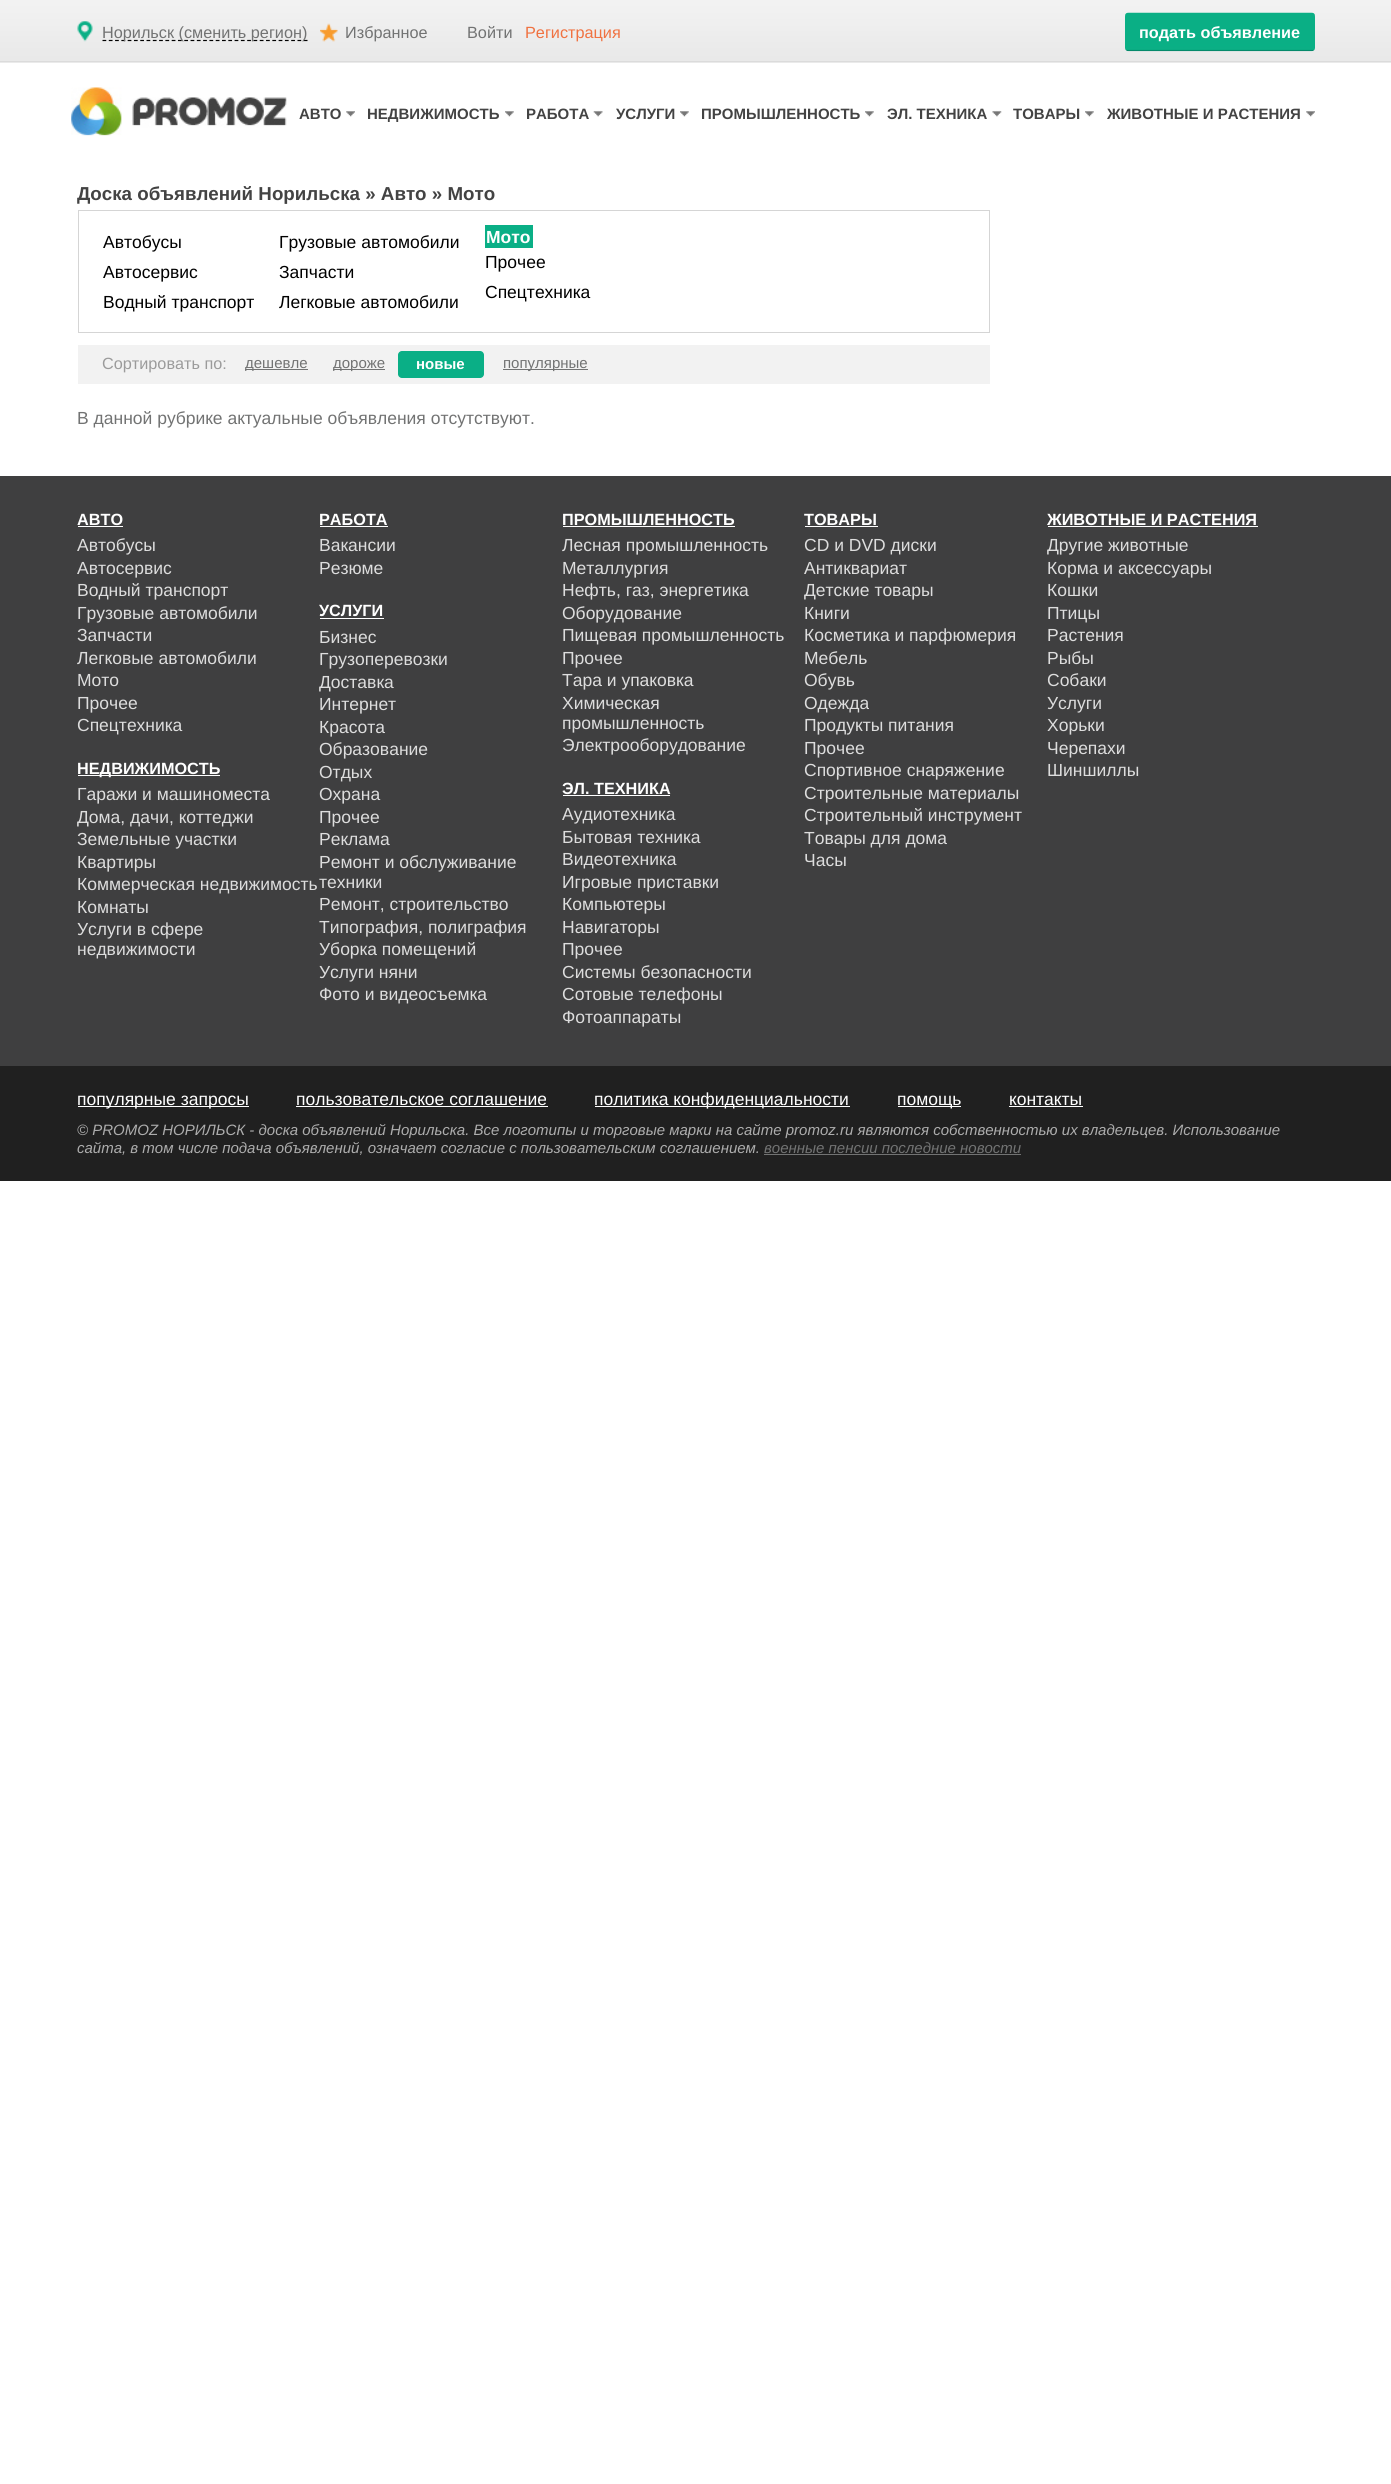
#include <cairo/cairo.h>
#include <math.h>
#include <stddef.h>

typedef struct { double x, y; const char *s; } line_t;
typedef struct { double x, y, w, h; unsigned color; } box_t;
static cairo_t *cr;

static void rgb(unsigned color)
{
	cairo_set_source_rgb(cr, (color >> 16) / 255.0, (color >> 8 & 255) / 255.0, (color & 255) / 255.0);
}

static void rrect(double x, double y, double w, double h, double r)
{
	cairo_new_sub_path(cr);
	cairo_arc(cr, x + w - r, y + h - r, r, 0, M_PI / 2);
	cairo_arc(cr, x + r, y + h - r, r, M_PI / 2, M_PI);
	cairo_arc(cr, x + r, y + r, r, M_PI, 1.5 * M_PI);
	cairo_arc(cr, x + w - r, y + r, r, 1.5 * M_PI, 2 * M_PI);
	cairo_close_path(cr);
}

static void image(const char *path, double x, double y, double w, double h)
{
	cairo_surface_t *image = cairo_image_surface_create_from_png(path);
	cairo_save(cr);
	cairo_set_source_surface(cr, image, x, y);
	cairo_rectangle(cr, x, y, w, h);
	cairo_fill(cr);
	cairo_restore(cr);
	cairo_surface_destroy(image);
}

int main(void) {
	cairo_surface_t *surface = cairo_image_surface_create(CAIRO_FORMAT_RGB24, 1391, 2484);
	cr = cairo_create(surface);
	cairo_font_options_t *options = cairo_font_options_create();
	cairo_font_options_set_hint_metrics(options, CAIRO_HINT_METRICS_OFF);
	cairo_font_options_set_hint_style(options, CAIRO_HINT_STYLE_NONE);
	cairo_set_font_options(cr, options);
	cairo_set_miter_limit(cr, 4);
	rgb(0xffffff);
	cairo_paint(cr);
	image("img/1.png", 0, 0, 1391, 63);
	image("img/2.png", 77, 21, 16, 21);
	cairo_new_path(cr);
	cairo_move_to(cr, 102.5, 40.5);
	cairo_line_to(cr, 307.5, 40.5);
	rgb(0x000000);
	cairo_set_line_width(cr, 1.2);
	cairo_set_dash(cr, (double[]){3.75, 2.54}, 2, 0);
	cairo_stroke(cr);
	image("img/3.png", 320, 23, 18, 19);
	image("img/4.png", 1125, 12, 190, 40);
	image("img/5.png", 71, 87, 216, 49);
	image("img/6.png", 346, 111, 9, 6);
	image("img/7.png", 505, 111, 9, 6);
	image("img/8.png", 593, 110, 10, 7);
	image("img/9.png", 680, 111, 9, 6);
	image("img/10.png", 865, 111, 9, 6);
	image("img/11.png", 992, 110, 10, 7);
	image("img/10.png", 1085, 111, 9, 6);
	image("img/6.png", 1306, 111, 9, 6);
	cairo_rectangle(cr, 78.5, 210.5, 911, 122);
	rgb(0xd5d5d5);
	cairo_set_line_width(cr, 1);
	cairo_set_dash(cr, NULL, 0, 0);
	cairo_stroke(cr);
	{
		static const box_t items[] = {
			{485, 225, 48, 23, 0x0aaf86},
			{78, 345, 912, 39, 0xf2f2f2},
			{245, 369, 63, 1, 0x727373},
			{333, 369, 52, 1, 0x727373},
		};
		for (size_t i = 0; i < sizeof items / sizeof *items; i++) {
			rgb(items[i].color);
			cairo_rectangle(cr, items[i].x, items[i].y, items[i].w, items[i].h);
			cairo_fill(cr);
		}
	}
	rgb(0x0aaf86);
	rrect(398, 351, 86, 27, 4);
	cairo_fill(cr);
	{
		static const box_t items[] = {
			{503, 369, 85, 1, 0x727373},
			{0, 476, 1391, 590, 0x3f3f40},
			{78, 526, 45, 1, 0xffffff},
			{78, 775, 142, 1, 0xffffff},
			{320, 526, 68, 1, 0xffffff},
			{320, 618, 64, 1, 0xffffff},
			{563, 526, 172, 1, 0xffffff},
			{563, 795, 107, 1, 0xffffff},
			{805, 526, 73, 1, 0xffffff},
			{1048, 526, 210, 1, 0xffffff},
			{0, 1066, 1391, 115, 0x202020},
			{78, 1106, 171, 1, 0xffffff},
			{296, 1106, 252, 1, 0xffffff},
			{595, 1106, 255, 1, 0xffffff},
			{898, 1106, 63, 1, 0xffffff},
			{1009, 1106, 74, 1, 0xffffff},
			{764, 1154, 257, 1, 0x727373},
		};
		for (size_t i = 0; i < sizeof items / sizeof *items; i++) {
			rgb(items[i].color);
			cairo_rectangle(cr, items[i].x, items[i].y, items[i].w, items[i].h);
			cairo_fill(cr);
		}
	}
	cairo_select_font_face(cr, "Liberation Sans", CAIRO_FONT_SLANT_NORMAL, CAIRO_FONT_WEIGHT_NORMAL);
	cairo_set_font_size(cr, 16.25);
	{
		static const line_t items[] = {
			{102, 38, "Норильск (сменить регион)"},
			{345, 38, "Избранное"},
			{467, 38, "Войти"},
		};
		for (size_t i = 0; i < sizeof items / sizeof *items; i++) {
			cairo_move_to(cr, items[i].x, items[i].y);
			cairo_show_text(cr, items[i].s);
		}
	}
	rgb(0xf07241);
	cairo_move_to(cr, 525, 38);
	cairo_show_text(cr, "Регистрация");
	cairo_select_font_face(cr, "Liberation Sans", CAIRO_FONT_SLANT_NORMAL, CAIRO_FONT_WEIGHT_BOLD);
	rgb(0xffffff);
	cairo_move_to(cr, 1139, 38);
	cairo_show_text(cr, "подать объявление");
	cairo_set_font_size(cr, 15);
	rgb(0x434343);
	{
		static const line_t items[] = {
			{299, 119, "АВТО"},
			{367, 119, "НЕДВИЖИМОСТЬ"},
			{526, 119, "РАБОТА"},
			{616, 119, "УСЛУГИ"},
			{701, 119, "ПРОМЫШЛЕННОСТЬ"},
			{887, 119, "ЭЛ. ТЕХНИКА"},
			{1013, 119, "ТОВАРЫ"},
			{1107, 119, "ЖИВОТНЫЕ И РАСТЕНИЯ"},
		};
		for (size_t i = 0; i < sizeof items / sizeof *items; i++) {
			cairo_move_to(cr, items[i].x, items[i].y);
			cairo_show_text(cr, items[i].s);
		}
	}
	cairo_set_font_size(cr, 18.75);
	cairo_move_to(cr, 77, 200);
	cairo_show_text(cr, "Доска объявлений Норильска » Авто » Мото");
	cairo_select_font_face(cr, "Liberation Sans", CAIRO_FONT_SLANT_NORMAL, CAIRO_FONT_WEIGHT_NORMAL);
	cairo_set_font_size(cr, 17.5);
	rgb(0x000000);
	{
		static const line_t items[] = {
			{103, 248, "Автобусы"},
			{103, 278, "Автосервис"},
			{103, 308, "Водный транспорт"},
			{279, 248, "Грузовые автомобили"},
			{279, 278, "Запчасти"},
			{279, 308, "Легковые автомобили"},
		};
		for (size_t i = 0; i < sizeof items / sizeof *items; i++) {
			cairo_move_to(cr, items[i].x, items[i].y);
			cairo_show_text(cr, items[i].s);
		}
	}
	cairo_select_font_face(cr, "Liberation Sans", CAIRO_FONT_SLANT_NORMAL, CAIRO_FONT_WEIGHT_BOLD);
	rgb(0xffffff);
	cairo_move_to(cr, 486, 243);
	cairo_show_text(cr, "Мото");
	cairo_select_font_face(cr, "Liberation Sans", CAIRO_FONT_SLANT_NORMAL, CAIRO_FONT_WEIGHT_NORMAL);
	rgb(0x000000);
	cairo_move_to(cr, 485, 268);
	cairo_show_text(cr, "Прочее");
	cairo_move_to(cr, 485, 298);
	cairo_show_text(cr, "Спецтехника");
	cairo_set_font_size(cr, 16.25);
	rgb(0x9b9b9b);
	cairo_move_to(cr, 102, 369);
	cairo_show_text(cr, "Сортировать по:");
	cairo_set_font_size(cr, 15);
	rgb(0x727373);
	cairo_move_to(cr, 245, 368);
	cairo_show_text(cr, "дешевле");
	cairo_move_to(cr, 333, 368);
	cairo_show_text(cr, "дороже");
	cairo_select_font_face(cr, "Liberation Sans", CAIRO_FONT_SLANT_NORMAL, CAIRO_FONT_WEIGHT_BOLD);
	rgb(0xffffff);
	cairo_move_to(cr, 416, 369);
	cairo_show_text(cr, "новые");
	cairo_select_font_face(cr, "Liberation Sans", CAIRO_FONT_SLANT_NORMAL, CAIRO_FONT_WEIGHT_NORMAL);
	rgb(0x727373);
	cairo_move_to(cr, 503, 368);
	cairo_show_text(cr, "популярные");
	cairo_set_font_size(cr, 17.5);
	cairo_move_to(cr, 77, 424);
	cairo_show_text(cr, "В данной рубрике актуальные объявления отсутствуют.");
	cairo_select_font_face(cr, "Liberation Sans", CAIRO_FONT_SLANT_NORMAL, CAIRO_FONT_WEIGHT_BOLD);
	cairo_set_font_size(cr, 16.25);
	rgb(0xffffff);
	cairo_move_to(cr, 77, 525);
	cairo_show_text(cr, "АВТО");
	cairo_select_font_face(cr, "Liberation Sans", CAIRO_FONT_SLANT_NORMAL, CAIRO_FONT_WEIGHT_NORMAL);
	cairo_set_font_size(cr, 17.5);
	rgb(0xdddddd);
	{
		static const line_t items[] = {
			{77, 551, "Автобусы"},
			{77, 574, "Автосервис"},
			{77, 596, "Водный транспорт"},
			{77, 619, "Грузовые автомобили"},
			{77, 641, "Запчасти"},
			{77, 664, "Легковые автомобили"},
			{77, 686, "Мото"},
			{77, 709, "Прочее"},
			{77, 731, "Спецтехника"},
		};
		for (size_t i = 0; i < sizeof items / sizeof *items; i++) {
			cairo_move_to(cr, items[i].x, items[i].y);
			cairo_show_text(cr, items[i].s);
		}
	}
	cairo_select_font_face(cr, "Liberation Sans", CAIRO_FONT_SLANT_NORMAL, CAIRO_FONT_WEIGHT_BOLD);
	cairo_set_font_size(cr, 16.25);
	rgb(0xffffff);
	cairo_move_to(cr, 77, 774);
	cairo_show_text(cr, "НЕДВИЖИМОСТЬ");
	cairo_select_font_face(cr, "Liberation Sans", CAIRO_FONT_SLANT_NORMAL, CAIRO_FONT_WEIGHT_NORMAL);
	cairo_set_font_size(cr, 17.5);
	rgb(0xdddddd);
	{
		static const line_t items[] = {
			{77, 800, "Гаражи и машиноместа"},
			{77, 823, "Дома, дачи, коттеджи"},
			{77, 845, "Земельные участки"},
			{77, 868, "Квартиры"},
			{77, 890, "Коммерческая недвижимость"},
			{77, 913, "Комнаты"},
			{77, 935, "Услуги в сфере"},
			{77, 955, "недвижимости"},
		};
		for (size_t i = 0; i < sizeof items / sizeof *items; i++) {
			cairo_move_to(cr, items[i].x, items[i].y);
			cairo_show_text(cr, items[i].s);
		}
	}
	cairo_select_font_face(cr, "Liberation Sans", CAIRO_FONT_SLANT_NORMAL, CAIRO_FONT_WEIGHT_BOLD);
	cairo_set_font_size(cr, 16.25);
	rgb(0xffffff);
	cairo_move_to(cr, 319, 525);
	cairo_show_text(cr, "РАБОТА");
	cairo_select_font_face(cr, "Liberation Sans", CAIRO_FONT_SLANT_NORMAL, CAIRO_FONT_WEIGHT_NORMAL);
	cairo_set_font_size(cr, 17.5);
	rgb(0xdddddd);
	cairo_move_to(cr, 319, 551);
	cairo_show_text(cr, "Вакансии");
	cairo_move_to(cr, 319, 574);
	cairo_show_text(cr, "Резюме");
	cairo_select_font_face(cr, "Liberation Sans", CAIRO_FONT_SLANT_NORMAL, CAIRO_FONT_WEIGHT_BOLD);
	cairo_set_font_size(cr, 16.25);
	rgb(0xffffff);
	cairo_move_to(cr, 319, 616);
	cairo_show_text(cr, "УСЛУГИ");
	cairo_select_font_face(cr, "Liberation Sans", CAIRO_FONT_SLANT_NORMAL, CAIRO_FONT_WEIGHT_NORMAL);
	cairo_set_font_size(cr, 17.5);
	rgb(0xdddddd);
	{
		static const line_t items[] = {
			{319, 643, "Бизнес"},
			{319, 665, "Грузоперевозки"},
			{319, 688, "Доставка"},
			{319, 710, "Интернет"},
			{319, 733, "Красота"},
			{319, 755, "Образование"},
			{319, 778, "Отдых"},
			{319, 800, "Охрана"},
			{319, 823, "Прочее"},
			{319, 845, "Реклама"},
			{319, 868, "Ремонт и обслуживание"},
			{319, 888, "техники"},
			{319, 910, "Ремонт, строительство"},
			{319, 933, "Типография, полиграфия"},
			{319, 955, "Уборка помещений"},
			{319, 978, "Услуги няни"},
			{319, 1000, "Фото и видеосъемка"},
		};
		for (size_t i = 0; i < sizeof items / sizeof *items; i++) {
			cairo_move_to(cr, items[i].x, items[i].y);
			cairo_show_text(cr, items[i].s);
		}
	}
	cairo_select_font_face(cr, "Liberation Sans", CAIRO_FONT_SLANT_NORMAL, CAIRO_FONT_WEIGHT_BOLD);
	cairo_set_font_size(cr, 16.25);
	rgb(0xffffff);
	cairo_move_to(cr, 562, 525);
	cairo_show_text(cr, "ПРОМЫШЛЕННОСТЬ");
	cairo_select_font_face(cr, "Liberation Sans", CAIRO_FONT_SLANT_NORMAL, CAIRO_FONT_WEIGHT_NORMAL);
	cairo_set_font_size(cr, 17.5);
	rgb(0xdddddd);
	{
		static const line_t items[] = {
			{562, 551, "Лесная промышленность"},
			{562, 574, "Металлургия"},
			{562, 596, "Нефть, газ, энергетика"},
			{562, 619, "Оборудование"},
			{562, 641, "Пищевая промышленность"},
			{562, 664, "Прочее"},
			{562, 686, "Тара и упаковка"},
			{562, 709, "Химическая"},
			{562, 729, "промышленность"},
			{562, 751, "Электрооборудование"},
		};
		for (size_t i = 0; i < sizeof items / sizeof *items; i++) {
			cairo_move_to(cr, items[i].x, items[i].y);
			cairo_show_text(cr, items[i].s);
		}
	}
	cairo_select_font_face(cr, "Liberation Sans", CAIRO_FONT_SLANT_NORMAL, CAIRO_FONT_WEIGHT_BOLD);
	cairo_set_font_size(cr, 16.25);
	rgb(0xffffff);
	cairo_move_to(cr, 562, 794);
	cairo_show_text(cr, "ЭЛ. ТЕХНИКА");
	cairo_select_font_face(cr, "Liberation Sans", CAIRO_FONT_SLANT_NORMAL, CAIRO_FONT_WEIGHT_NORMAL);
	cairo_set_font_size(cr, 17.5);
	rgb(0xdddddd);
	{
		static const line_t items[] = {
			{562, 820, "Аудиотехника"},
			{562, 843, "Бытовая техника"},
			{562, 865, "Видеотехника"},
			{562, 888, "Игровые приставки"},
			{562, 910, "Компьютеры"},
			{562, 933, "Навигаторы"},
			{562, 955, "Прочее"},
			{562, 978, "Системы безопасности"},
			{562, 1000, "Сотовые телефоны"},
			{562, 1023, "Фотоаппараты"},
		};
		for (size_t i = 0; i < sizeof items / sizeof *items; i++) {
			cairo_move_to(cr, items[i].x, items[i].y);
			cairo_show_text(cr, items[i].s);
		}
	}
	cairo_select_font_face(cr, "Liberation Sans", CAIRO_FONT_SLANT_NORMAL, CAIRO_FONT_WEIGHT_BOLD);
	cairo_set_font_size(cr, 16.25);
	rgb(0xffffff);
	cairo_move_to(cr, 804, 525);
	cairo_show_text(cr, "ТОВАРЫ");
	cairo_select_font_face(cr, "Liberation Sans", CAIRO_FONT_SLANT_NORMAL, CAIRO_FONT_WEIGHT_NORMAL);
	cairo_set_font_size(cr, 17.5);
	rgb(0xdddddd);
	{
		static const line_t items[] = {
			{804, 551, "CD и DVD диски"},
			{804, 574, "Антиквариат"},
			{804, 596, "Детские товары"},
			{804, 619, "Книги"},
			{804, 641, "Косметика и парфюмерия"},
			{804, 664, "Мебель"},
			{804, 686, "Обувь"},
			{804, 709, "Одежда"},
			{804, 731, "Продукты питания"},
			{804, 754, "Прочее"},
			{804, 776, "Спортивное снаряжение"},
			{804, 799, "Строительные материалы"},
			{804, 821, "Строительный инструмент"},
			{804, 844, "Товары для дома"},
			{804, 866, "Часы"},
		};
		for (size_t i = 0; i < sizeof items / sizeof *items; i++) {
			cairo_move_to(cr, items[i].x, items[i].y);
			cairo_show_text(cr, items[i].s);
		}
	}
	cairo_select_font_face(cr, "Liberation Sans", CAIRO_FONT_SLANT_NORMAL, CAIRO_FONT_WEIGHT_BOLD);
	cairo_set_font_size(cr, 16.25);
	rgb(0xffffff);
	cairo_move_to(cr, 1047, 525);
	cairo_show_text(cr, "ЖИВОТНЫЕ И РАСТЕНИЯ");
	cairo_select_font_face(cr, "Liberation Sans", CAIRO_FONT_SLANT_NORMAL, CAIRO_FONT_WEIGHT_NORMAL);
	cairo_set_font_size(cr, 17.5);
	rgb(0xdddddd);
	{
		static const line_t items[] = {
			{1047, 551, "Другие животные"},
			{1047, 574, "Корма и аксессуары"},
			{1047, 596, "Кошки"},
			{1047, 619, "Птицы"},
			{1047, 641, "Растения"},
			{1047, 664, "Рыбы"},
			{1047, 686, "Собаки"},
			{1047, 709, "Услуги"},
			{1047, 731, "Хорьки"},
			{1047, 754, "Черепахи"},
			{1047, 776, "Шиншиллы"},
		};
		for (size_t i = 0; i < sizeof items / sizeof *items; i++) {
			cairo_move_to(cr, items[i].x, items[i].y);
			cairo_show_text(cr, items[i].s);
		}
	}
	rgb(0xffffff);
	{
		static const line_t items[] = {
			{77, 1105, "популярные запросы"},
			{296, 1105, "пользовательское соглашение"},
			{594, 1105, "политика конфиденциальности"},
			{897, 1105, "помощь"},
			{1009, 1105, "контакты"},
		};
		for (size_t i = 0; i < sizeof items / sizeof *items; i++) {
			cairo_move_to(cr, items[i].x, items[i].y);
			cairo_show_text(cr, items[i].s);
		}
	}
	cairo_select_font_face(cr, "Liberation Sans", CAIRO_FONT_SLANT_ITALIC, CAIRO_FONT_WEIGHT_NORMAL);
	cairo_set_font_size(cr, 15);
	rgb(0xadadad);
	cairo_move_to(cr, 77, 1135);
	cairo_show_text(cr, "© PROMOZ НОРИЛЬСК - доска объявлений Норильска. Все логотипы и торговые марки на сайте promoz.ru являются собственностью их владельцев. Использование");
	cairo_move_to(cr, 77, 1153);
	cairo_show_text(cr, "сайта, в том числе подача объявлений, означает согласие с пользовательским соглашением.");
	rgb(0x727373);
	cairo_move_to(cr, 764, 1153);
	cairo_show_text(cr, "военные пенсии последние новости");
	cairo_surface_write_to_png(surface, "page.png");
	cairo_font_options_destroy(options);
	cairo_destroy(cr);
	cairo_surface_destroy(surface);
	return 0;
}
